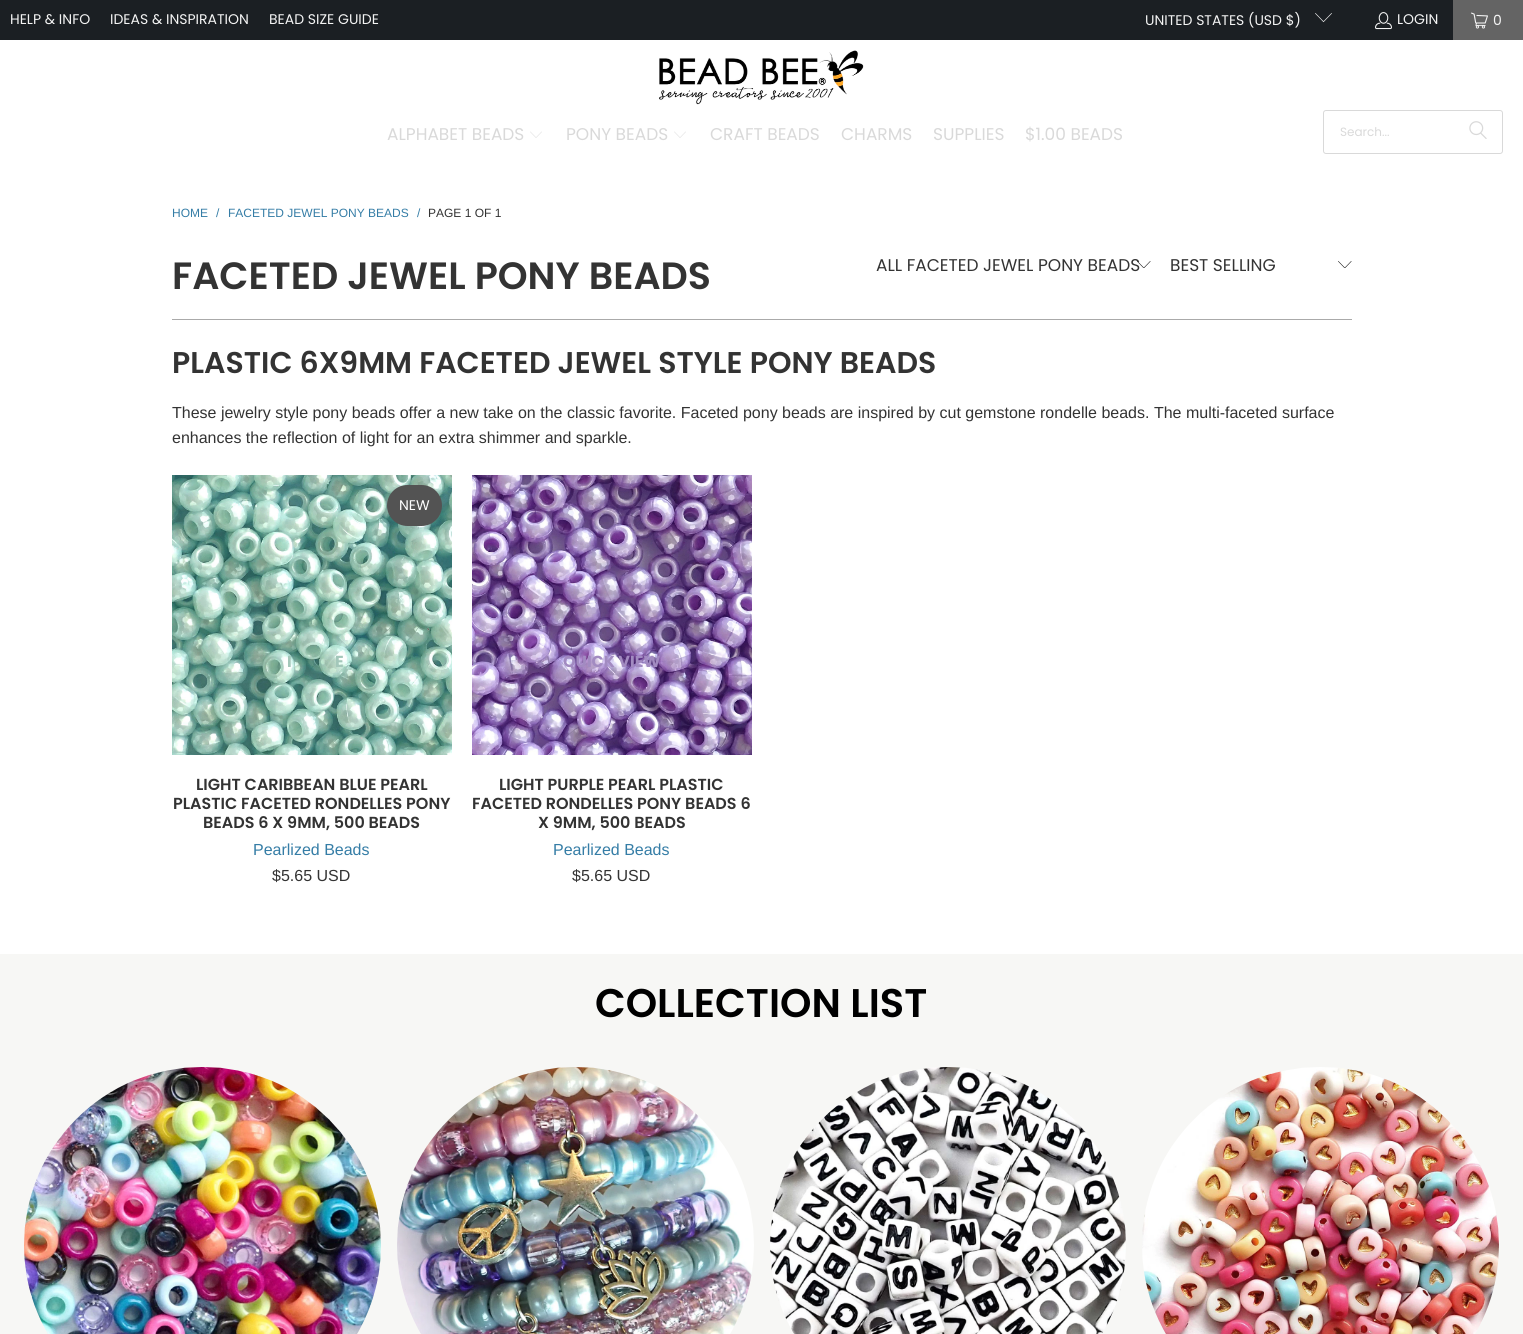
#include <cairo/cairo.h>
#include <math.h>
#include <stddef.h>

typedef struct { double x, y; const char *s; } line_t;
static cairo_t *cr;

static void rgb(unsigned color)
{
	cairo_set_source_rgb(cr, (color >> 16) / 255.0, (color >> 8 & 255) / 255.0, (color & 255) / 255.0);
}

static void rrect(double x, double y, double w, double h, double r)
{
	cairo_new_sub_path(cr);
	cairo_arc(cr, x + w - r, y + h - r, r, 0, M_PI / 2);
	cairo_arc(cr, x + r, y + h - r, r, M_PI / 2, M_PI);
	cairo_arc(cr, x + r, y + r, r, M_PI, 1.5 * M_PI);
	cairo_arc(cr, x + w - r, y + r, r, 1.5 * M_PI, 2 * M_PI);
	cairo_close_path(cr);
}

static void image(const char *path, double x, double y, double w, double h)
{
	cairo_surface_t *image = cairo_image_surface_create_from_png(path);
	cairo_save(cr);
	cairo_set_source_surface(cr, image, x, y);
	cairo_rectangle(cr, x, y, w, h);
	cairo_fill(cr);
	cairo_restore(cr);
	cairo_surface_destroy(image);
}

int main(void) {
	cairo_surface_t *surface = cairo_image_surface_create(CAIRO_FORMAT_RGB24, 1523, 1334);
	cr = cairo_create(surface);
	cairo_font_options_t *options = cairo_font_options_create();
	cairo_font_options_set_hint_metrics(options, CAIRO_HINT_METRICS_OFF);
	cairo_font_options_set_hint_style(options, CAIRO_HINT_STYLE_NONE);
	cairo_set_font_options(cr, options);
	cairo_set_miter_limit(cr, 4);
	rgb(0xffffff);
	cairo_paint(cr);
	rgb(0x1b1f23);
	cairo_rectangle(cr, 0, 0, 1453, 40);
	cairo_fill(cr);
	image("img/1.png", 1315, 13, 17, 10);
	image("img/2.png", 1375, 12, 17, 18);
	rgb(0x646464);
	cairo_rectangle(cr, 1453, 0, 70, 40);
	cairo_fill(cr);
	image("img/3.png", 1471, 12, 17, 17);
	image("img/4.png", 659, 50, 205, 55);
	image("img/5.png", 530, 131, 12, 7);
	image("img/5.png", 674, 131, 12, 7);
	rrect(1323.5, 110.5, 179, 43, 2.5);
	rgb(0xd9d9d9);
	cairo_set_line_width(cr, 1);
	cairo_stroke(cr);
	image("img/6.png", 1469, 121, 18, 18);
	image("img/7.png", 1137, 261, 14, 7);
	image("img/7.png", 1338, 261, 14, 7);
	rgb(0xaaaaaa);
	cairo_rectangle(cr, 172, 319, 1180, 1);
	cairo_fill(cr);
	image("img/8.png", 172, 475, 280, 280);
	rgb(0x535353);
	rrect(387, 485, 55, 41, 20.5);
	cairo_fill(cr);
	image("img/9.png", 472, 475, 280, 280);
	rgb(0xf7f7f5);
	cairo_rectangle(cr, 0, 954, 1523, 380);
	cairo_fill(cr);
	image("img/10.png", 24, 1067, 357, 267);
	image("img/11.png", 397, 1067, 357, 267);
	image("img/12.png", 770, 1067, 356, 267);
	image("img/13.png", 1142, 1067, 357, 267);
	cairo_select_font_face(cr, "Poppins", CAIRO_FONT_SLANT_NORMAL, CAIRO_FONT_WEIGHT_NORMAL);
	cairo_set_font_size(cr, 14);
	rgb(0xf4f4f4);
	{
		static const line_t items[] = {
			{10, 24, "HELP & INFO"},
			{110, 24, "IDEAS & INSPIRATION"},
			{269, 24, "BEAD SIZE GUIDE"},
			{1145, 25, "UNITED STATES (USD $)"},
			{1397, 24, "LOGIN"},
			{1493, 25, "0"},
		};
		for (size_t i = 0; i < sizeof items / sizeof *items; i++) {
			cairo_move_to(cr, items[i].x, items[i].y);
			cairo_show_text(cr, items[i].s);
		}
	}
	cairo_set_font_size(cr, 17);
	rgb(0xd9d9d9);
	{
		static const line_t items[] = {
			{387, 140, "ALPHABET BEADS"},
			{566, 140, "PONY BEADS"},
			{710, 140, "CRAFT BEADS"},
			{841, 140, "CHARMS"},
			{933, 140, "SUPPLIES"},
			{1025, 140, "$1.00 BEADS"},
		};
		for (size_t i = 0; i < sizeof items / sizeof *items; i++) {
			cairo_move_to(cr, items[i].x, items[i].y);
			cairo_show_text(cr, items[i].s);
		}
	}
	cairo_set_font_size(cr, 12);
	cairo_move_to(cr, 1340, 136);
	cairo_show_text(cr, "Search...");
	cairo_select_font_face(cr, "Liberation Sans", CAIRO_FONT_SLANT_NORMAL, CAIRO_FONT_WEIGHT_NORMAL);
	rgb(0x357da6);
	{
		static const line_t items[] = {
			{172, 217, "HOME"},
			{216, 217, "/"},
			{228, 217, "FACETED JEWEL PONY BEADS"},
			{417, 217, "/"},
		};
		for (size_t i = 0; i < sizeof items / sizeof *items; i++) {
			cairo_move_to(cr, items[i].x, items[i].y);
			cairo_show_text(cr, items[i].s);
		}
	}
	rgb(0x333333);
	cairo_move_to(cr, 428, 217);
	cairo_show_text(cr, "PAGE 1 OF 1");
	cairo_select_font_face(cr, "Poppins SemiBold", CAIRO_FONT_SLANT_NORMAL, CAIRO_FONT_WEIGHT_NORMAL);
	cairo_set_font_size(cr, 38);
	cairo_move_to(cr, 172, 289);
	cairo_show_text(cr, "FACETED JEWEL PONY BEADS");
	cairo_select_font_face(cr, "Poppins", CAIRO_FONT_SLANT_NORMAL, CAIRO_FONT_WEIGHT_NORMAL);
	cairo_set_font_size(cr, 17);
	cairo_move_to(cr, 876, 271);
	cairo_show_text(cr, "ALL FACETED JEWEL PONY BEADS");
	cairo_move_to(cr, 1170, 271);
	cairo_show_text(cr, "BEST SELLING");
	cairo_select_font_face(cr, "Poppins SemiBold", CAIRO_FONT_SLANT_NORMAL, CAIRO_FONT_WEIGHT_NORMAL);
	cairo_set_font_size(cr, 30);
	cairo_move_to(cr, 172, 373);
	cairo_show_text(cr, "PLASTIC 6X9MM FACETED JEWEL STYLE PONY BEADS");
	cairo_select_font_face(cr, "Liberation Sans", CAIRO_FONT_SLANT_NORMAL, CAIRO_FONT_WEIGHT_NORMAL);
	cairo_set_font_size(cr, 16);
	cairo_move_to(cr, 172, 418);
	cairo_show_text(cr, "These jewelry style pony beads offer a new take on the classic favorite. Faceted pony beads are inspired by cut gemstone rondelle beads. The multi-faceted surface");
	cairo_move_to(cr, 172, 443);
	cairo_show_text(cr, "enhances the reflection of light for an extra shimmer and sparkle.");
	cairo_select_font_face(cr, "Poppins", CAIRO_FONT_SLANT_NORMAL, CAIRO_FONT_WEIGHT_NORMAL);
	cairo_set_font_size(cr, 14);
	rgb(0xffffff);
	cairo_move_to(cr, 399, 510);
	cairo_show_text(cr, "NEW");
	cairo_select_font_face(cr, "Poppins", CAIRO_FONT_SLANT_NORMAL, CAIRO_FONT_WEIGHT_BOLD);
	cairo_set_font_size(cr, 16);
	rgb(0xa3c7ba);
	cairo_move_to(cr, 287, 667);
	cairo_show_text(cr, "I");
	cairo_move_to(cr, 335, 667);
	cairo_show_text(cr, "E");
	cairo_select_font_face(cr, "Poppins SemiBold", CAIRO_FONT_SLANT_NORMAL, CAIRO_FONT_WEIGHT_NORMAL);
	rgb(0x333333);
	{
		static const line_t items[] = {
			{196, 790, "LIGHT CARIBBEAN BLUE PEARL"},
			{173, 809, "PLASTIC FACETED RONDELLES PONY"},
			{203, 828, "BEADS 6 X 9MM, 500 BEADS"},
		};
		for (size_t i = 0; i < sizeof items / sizeof *items; i++) {
			cairo_move_to(cr, items[i].x, items[i].y);
			cairo_show_text(cr, items[i].s);
		}
	}
	cairo_select_font_face(cr, "Liberation Sans", CAIRO_FONT_SLANT_NORMAL, CAIRO_FONT_WEIGHT_NORMAL);
	rgb(0x357da6);
	cairo_move_to(cr, 253, 855);
	cairo_show_text(cr, "Pearlized Beads");
	rgb(0x333333);
	cairo_move_to(cr, 272, 881);
	cairo_show_text(cr, "$5.65 USD");
	cairo_select_font_face(cr, "Poppins", CAIRO_FONT_SLANT_NORMAL, CAIRO_FONT_WEIGHT_BOLD);
	rgb(0xa28bc1);
	cairo_move_to(cr, 563, 667);
	cairo_show_text(cr, "QUICK VIEW");
	cairo_select_font_face(cr, "Poppins SemiBold", CAIRO_FONT_SLANT_NORMAL, CAIRO_FONT_WEIGHT_NORMAL);
	rgb(0x333333);
	{
		static const line_t items[] = {
			{499, 790, "LIGHT PURPLE PEARL PLASTIC"},
			{472, 809, "FACETED RONDELLES PONY BEADS 6"},
			{538, 828, "X 9MM, 500 BEADS"},
		};
		for (size_t i = 0; i < sizeof items / sizeof *items; i++) {
			cairo_move_to(cr, items[i].x, items[i].y);
			cairo_show_text(cr, items[i].s);
		}
	}
	cairo_select_font_face(cr, "Liberation Sans", CAIRO_FONT_SLANT_NORMAL, CAIRO_FONT_WEIGHT_NORMAL);
	rgb(0x357da6);
	cairo_move_to(cr, 553, 855);
	cairo_show_text(cr, "Pearlized Beads");
	rgb(0x333333);
	cairo_move_to(cr, 572, 881);
	cairo_show_text(cr, "$5.65 USD");
	cairo_select_font_face(cr, "Poppins SemiBold", CAIRO_FONT_SLANT_NORMAL, CAIRO_FONT_WEIGHT_NORMAL);
	cairo_set_font_size(cr, 40);
	rgb(0x000000);
	cairo_move_to(cr, 595, 1017);
	cairo_show_text(cr, "COLLECTION LIST");
	cairo_surface_write_to_png(surface, "page.png");
	cairo_font_options_destroy(options);
	cairo_destroy(cr);
	cairo_surface_destroy(surface);
	return 0;
}
